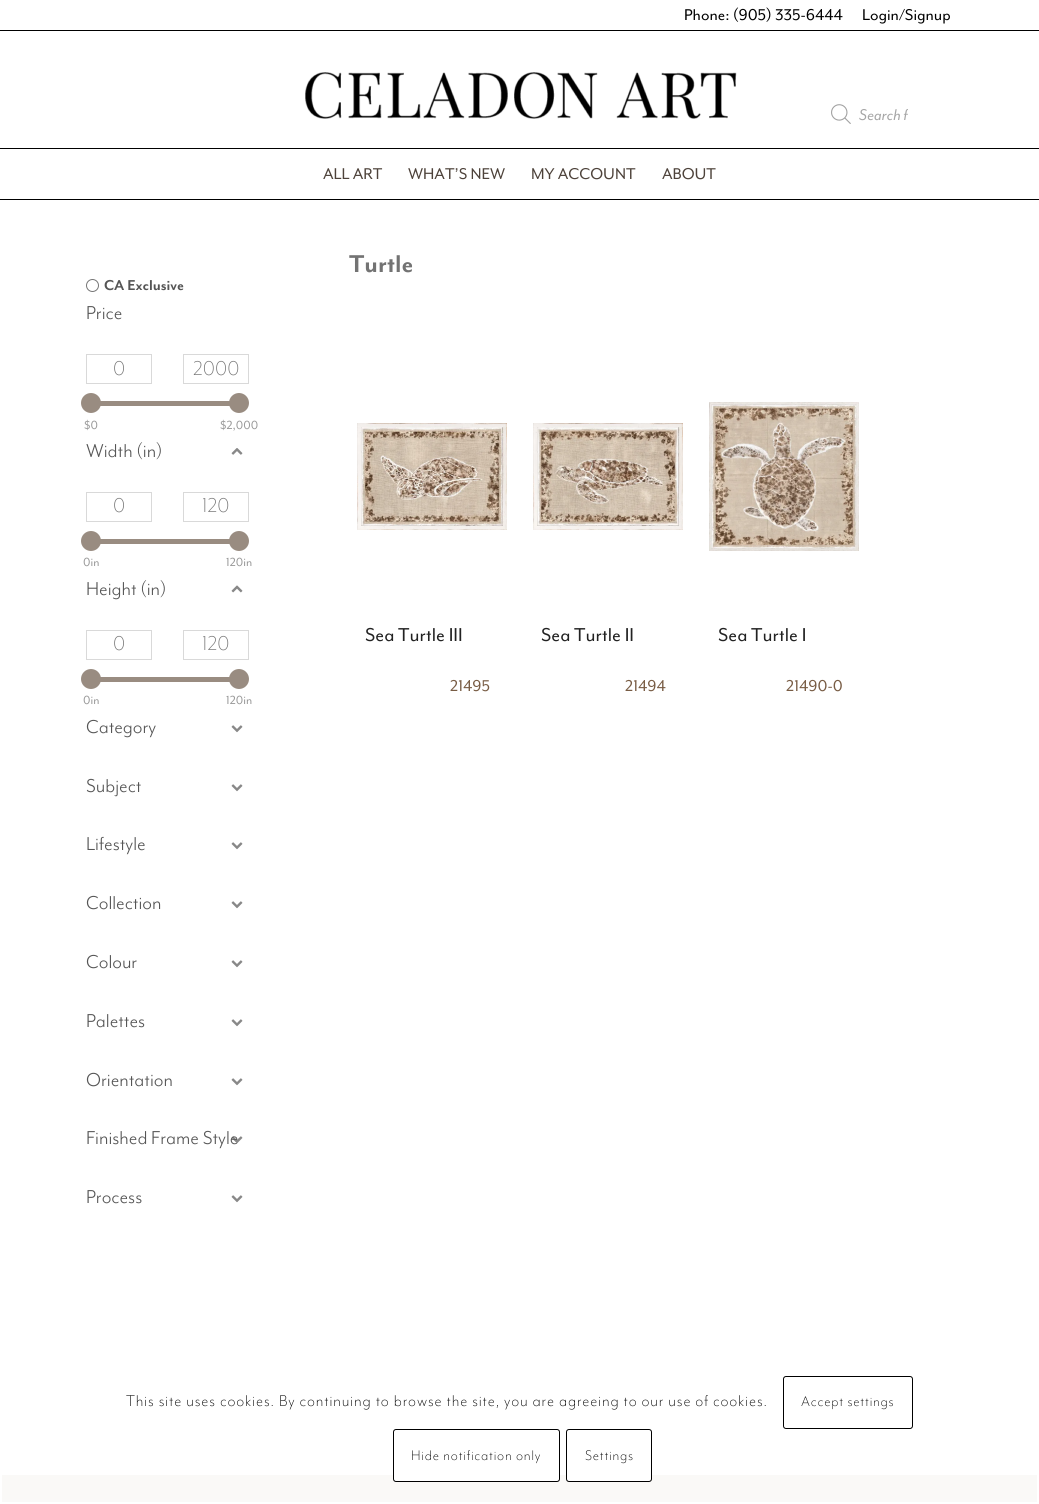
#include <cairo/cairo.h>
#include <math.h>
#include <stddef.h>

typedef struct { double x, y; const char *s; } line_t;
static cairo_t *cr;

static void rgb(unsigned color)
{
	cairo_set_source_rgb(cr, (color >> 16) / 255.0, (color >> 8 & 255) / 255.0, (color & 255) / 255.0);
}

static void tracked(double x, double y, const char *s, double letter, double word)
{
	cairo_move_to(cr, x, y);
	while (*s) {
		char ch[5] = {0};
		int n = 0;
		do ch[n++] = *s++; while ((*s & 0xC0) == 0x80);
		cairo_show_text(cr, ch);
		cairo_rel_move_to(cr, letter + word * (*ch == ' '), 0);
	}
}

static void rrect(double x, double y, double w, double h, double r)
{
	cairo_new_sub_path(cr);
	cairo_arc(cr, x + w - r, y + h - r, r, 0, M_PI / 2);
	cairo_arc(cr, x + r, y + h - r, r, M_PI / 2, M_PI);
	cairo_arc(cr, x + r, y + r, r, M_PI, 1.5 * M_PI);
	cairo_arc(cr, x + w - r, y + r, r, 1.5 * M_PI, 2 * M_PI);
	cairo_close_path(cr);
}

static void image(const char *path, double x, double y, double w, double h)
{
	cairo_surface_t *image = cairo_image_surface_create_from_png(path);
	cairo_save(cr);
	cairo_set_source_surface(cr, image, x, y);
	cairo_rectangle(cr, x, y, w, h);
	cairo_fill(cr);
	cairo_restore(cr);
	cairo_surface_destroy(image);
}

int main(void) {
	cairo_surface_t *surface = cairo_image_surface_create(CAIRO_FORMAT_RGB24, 1039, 1504);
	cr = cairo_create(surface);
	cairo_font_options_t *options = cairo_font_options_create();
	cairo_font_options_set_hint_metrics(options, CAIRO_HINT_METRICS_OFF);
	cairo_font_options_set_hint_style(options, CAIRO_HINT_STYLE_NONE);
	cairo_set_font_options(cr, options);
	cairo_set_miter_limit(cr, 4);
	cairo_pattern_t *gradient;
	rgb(0xffffff);
	cairo_paint(cr);
	rgb(0x000000);
	cairo_rectangle(cr, 0, 30, 1039, 1);
	cairo_fill(cr);
	cairo_rectangle(cr, 0, 199, 1039, 1);
	cairo_fill(cr);
	image("img/1.png", 305, 72, 432, 47);
	image("img/2.png", 831, 104, 20, 20);
	cairo_rectangle(cr, 0, 148, 1039, 1);
	cairo_fill(cr);
	cairo_arc(cr, 92.5, 285.5, 6, 0, 2 * M_PI);
	rgb(0x767676);
	cairo_set_line_width(cr, 1);
	cairo_stroke(cr);
	cairo_rectangle(cr, 86.5, 354.5, 65, 29);
	rgb(0xd9d9d9);
	cairo_stroke(cr);
	cairo_rectangle(cr, 183.5, 354.5, 65, 29);
	cairo_stroke(cr);
	rgb(0x998c81);
	cairo_rectangle(cr, 100, 401, 130, 5);
	cairo_fill(cr);
	cairo_arc(cr, 91, 403, 10, 0, 2 * M_PI);
	cairo_fill(cr);
	cairo_arc(cr, 239, 403, 10, 0, 2 * M_PI);
	cairo_fill(cr);
	image("img/3.png", 231, 448, 12, 7);
	cairo_rectangle(cr, 86.5, 492.5, 65, 29);
	rgb(0xd9d9d9);
	cairo_stroke(cr);
	cairo_rectangle(cr, 183.5, 492.5, 65, 29);
	cairo_stroke(cr);
	rgb(0x998c81);
	cairo_rectangle(cr, 100, 539, 130, 5);
	cairo_fill(cr);
	cairo_arc(cr, 91, 541, 10, 0, 2 * M_PI);
	cairo_fill(cr);
	cairo_arc(cr, 239, 541, 10, 0, 2 * M_PI);
	cairo_fill(cr);
	image("img/4.png", 231, 585, 12, 8);
	cairo_rectangle(cr, 86.5, 630.5, 65, 29);
	rgb(0xd9d9d9);
	cairo_stroke(cr);
	cairo_rectangle(cr, 183.5, 630.5, 65, 29);
	cairo_stroke(cr);
	rgb(0x998c81);
	cairo_rectangle(cr, 100, 677, 130, 5);
	cairo_fill(cr);
	cairo_arc(cr, 91, 679, 10, 0, 2 * M_PI);
	cairo_fill(cr);
	cairo_arc(cr, 239, 679, 10, 0, 2 * M_PI);
	cairo_fill(cr);
	image("img/5.png", 231, 725, 12, 8);
	image("img/5.png", 231, 784, 12, 8);
	image("img/5.png", 231, 842, 12, 8);
	image("img/5.png", 231, 901, 12, 8);
	image("img/5.png", 231, 960, 12, 8);
	image("img/5.png", 231, 1019, 12, 8);
	image("img/5.png", 231, 1078, 12, 8);
	image("img/5.png", 231, 1195, 12, 8);
	image("img/7.png", 357, 423, 150, 107);
	image("img/8.png", 533, 423, 150, 107);
	image("img/9.png", 709, 402, 150, 149);
	gradient = cairo_pattern_create_linear(520, 1475, 520, 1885);
	cairo_pattern_add_color_stop_rgba(gradient, 0, 0.98, 0.976, 0.969, 1);
	cairo_pattern_add_color_stop_rgba(gradient, 1, 0.996, 0.996, 0.996, 1);
	cairo_set_source(cr, gradient);
	cairo_pattern_destroy(gradient);
	cairo_rectangle(cr, 2, 1475, 1035, 27);
	cairo_fill(cr);
	rrect(783.5, 1376.5, 129, 52, 2.5);
	rgb(0x000000);
	cairo_stroke(cr);
	rgb(0xffffff);
	rrect(393.5, 1429.5, 166, 52, 2.5);
	cairo_fill_preserve(cr);
	rgb(0x000000);
	cairo_stroke(cr);
	rgb(0xffffff);
	rrect(566.5, 1429.5, 85, 52, 2.5);
	cairo_fill_preserve(cr);
	rgb(0x000000);
	cairo_stroke(cr);
	cairo_select_font_face(cr, "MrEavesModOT", CAIRO_FONT_SLANT_NORMAL, CAIRO_FONT_WEIGHT_NORMAL);
	cairo_set_font_size(cr, 18);
	cairo_move_to(cr, 684, 20);
	cairo_show_text(cr, "Phone: (905) 335-6444");
	cairo_move_to(cr, 862, 20);
	cairo_show_text(cr, "Login/Signup");
	cairo_save(cr);
	cairo_rectangle(cr, 859, 106, 49, 18);
	cairo_clip(cr);
	cairo_select_font_face(cr, "MrEavesModOT", CAIRO_FONT_SLANT_ITALIC, CAIRO_FONT_WEIGHT_NORMAL);
	rgb(0xa6a6a6);
	cairo_move_to(cr, 859, 120);
	cairo_show_text(cr, "Search f");
	cairo_restore(cr);
	rgb(0x4d423a);
	{
		static const line_t items[] = {
			{323, 179, "ALL ART"},
			{408, 179, "WHAT’S NEW"},
			{531, 179, "MY ACCOUNT"},
			{662, 179, "ABOUT"},
		};
		for (size_t i = 0; i < sizeof items / sizeof *items; i++) {
			cairo_move_to(cr, items[i].x, items[i].y);
			cairo_show_text(cr, items[i].s);
		}
	}
	cairo_select_font_face(cr, "MrEavesModOT", CAIRO_FONT_SLANT_NORMAL, CAIRO_FONT_WEIGHT_BOLD);
	cairo_set_font_size(cr, 16.5);
	rgb(0x555555);
	cairo_move_to(cr, 104, 290);
	cairo_show_text(cr, "CA Exclusive");
	cairo_select_font_face(cr, "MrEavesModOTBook", CAIRO_FONT_SLANT_NORMAL, CAIRO_FONT_WEIGHT_NORMAL);
	cairo_set_font_size(cr, 21.5);
	cairo_move_to(cr, 86, 319);
	cairo_show_text(cr, "Price");
	cairo_select_font_face(cr, "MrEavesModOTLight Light", CAIRO_FONT_SLANT_NORMAL, CAIRO_FONT_WEIGHT_NORMAL);
	cairo_set_font_size(cr, 23);
	rgb(0x737373);
	cairo_move_to(cr, 113, 375);
	cairo_show_text(cr, "0");
	cairo_move_to(cr, 193, 375);
	cairo_show_text(cr, "2000");
	cairo_select_font_face(cr, "MrEavesModOT", CAIRO_FONT_SLANT_NORMAL, CAIRO_FONT_WEIGHT_NORMAL);
	cairo_set_font_size(cr, 13.5);
	rgb(0x999999);
	cairo_move_to(cr, 84, 429);
	cairo_show_text(cr, "$0");
	cairo_move_to(cr, 220, 429);
	cairo_show_text(cr, "$2,000");
	cairo_select_font_face(cr, "MrEavesModOTBook", CAIRO_FONT_SLANT_NORMAL, CAIRO_FONT_WEIGHT_NORMAL);
	cairo_set_font_size(cr, 21.5);
	rgb(0x555555);
	cairo_move_to(cr, 86, 457);
	cairo_show_text(cr, "Width (in)");
	cairo_select_font_face(cr, "MrEavesModOTLight Light", CAIRO_FONT_SLANT_NORMAL, CAIRO_FONT_WEIGHT_NORMAL);
	cairo_set_font_size(cr, 23);
	rgb(0x737373);
	cairo_move_to(cr, 113, 512);
	cairo_show_text(cr, "0");
	cairo_move_to(cr, 202, 512);
	cairo_show_text(cr, "120");
	cairo_select_font_face(cr, "MrEavesModOT", CAIRO_FONT_SLANT_NORMAL, CAIRO_FONT_WEIGHT_NORMAL);
	cairo_set_font_size(cr, 13.5);
	rgb(0x999999);
	cairo_move_to(cr, 83, 566);
	cairo_show_text(cr, "0in");
	cairo_move_to(cr, 226, 566);
	cairo_show_text(cr, "120in");
	cairo_select_font_face(cr, "MrEavesModOTBook", CAIRO_FONT_SLANT_NORMAL, CAIRO_FONT_WEIGHT_NORMAL);
	cairo_set_font_size(cr, 21.5);
	rgb(0x555555);
	cairo_move_to(cr, 86, 595);
	cairo_show_text(cr, "Height (in)");
	cairo_select_font_face(cr, "MrEavesModOTLight Light", CAIRO_FONT_SLANT_NORMAL, CAIRO_FONT_WEIGHT_NORMAL);
	cairo_set_font_size(cr, 23);
	rgb(0x737373);
	cairo_move_to(cr, 113, 650);
	cairo_show_text(cr, "0");
	cairo_move_to(cr, 202, 650);
	cairo_show_text(cr, "120");
	cairo_select_font_face(cr, "MrEavesModOT", CAIRO_FONT_SLANT_NORMAL, CAIRO_FONT_WEIGHT_NORMAL);
	cairo_set_font_size(cr, 13.5);
	rgb(0x999999);
	cairo_move_to(cr, 83, 704);
	cairo_show_text(cr, "0in");
	cairo_move_to(cr, 226, 704);
	cairo_show_text(cr, "120in");
	cairo_select_font_face(cr, "MrEavesModOTBook", CAIRO_FONT_SLANT_NORMAL, CAIRO_FONT_WEIGHT_NORMAL);
	cairo_set_font_size(cr, 21.5);
	rgb(0x555555);
	{
		static const line_t items[] = {
			{86, 733, "Category"},
			{86, 792, "Subject"},
			{86, 850, "Lifestyle"},
			{86, 909, "Collection"},
			{86, 968, "Colour"},
			{86, 1027, "Palettes"},
			{86, 1086, "Orientation"},
			{86, 1144, "Finished Frame Style"},
		};
		for (size_t i = 0; i < sizeof items / sizeof *items; i++) {
			cairo_move_to(cr, items[i].x, items[i].y);
			cairo_show_text(cr, items[i].s);
		}
	}
	image("img/6.png", 231, 1136, 12, 7);
	cairo_move_to(cr, 86, 1203);
	cairo_show_text(cr, "Process");
	cairo_select_font_face(cr, "MrEavesModOT", CAIRO_FONT_SLANT_NORMAL, CAIRO_FONT_WEIGHT_BOLD);
	cairo_set_font_size(cr, 28);
	rgb(0x737373);
	cairo_move_to(cr, 349, 272);
	cairo_show_text(cr, "Turtle");
	cairo_select_font_face(cr, "MrEavesModOT", CAIRO_FONT_SLANT_NORMAL, CAIRO_FONT_WEIGHT_NORMAL);
	cairo_set_font_size(cr, 21.5);
	rgb(0x222222);
	cairo_move_to(cr, 365, 641);
	cairo_show_text(cr, "Sea Turtle III");
	cairo_set_font_size(cr, 18);
	rgb(0x785c44);
	cairo_move_to(cr, 450, 691);
	cairo_show_text(cr, "21495");
	cairo_set_font_size(cr, 21.5);
	rgb(0x222222);
	cairo_move_to(cr, 541, 641);
	cairo_show_text(cr, "Sea Turtle II");
	cairo_set_font_size(cr, 18);
	rgb(0x785c44);
	cairo_move_to(cr, 625, 691);
	cairo_show_text(cr, "21494");
	cairo_set_font_size(cr, 21.5);
	rgb(0x222222);
	cairo_move_to(cr, 718, 641);
	cairo_show_text(cr, "Sea Turtle I");
	cairo_set_font_size(cr, 18);
	rgb(0x785c44);
	cairo_move_to(cr, 786, 691);
	cairo_show_text(cr, "21490-0");
	cairo_select_font_face(cr, "MrEavesModOTLight Light", CAIRO_FONT_SLANT_NORMAL, CAIRO_FONT_WEIGHT_NORMAL);
	rgb(0x000000);
	tracked(126, 1406, "This site uses cookies. By continuing to browse the site, you are agreeing to our use of cookies.", 0.9, 0);
	cairo_set_font_size(cr, 16);
	{
		static const line_t items[] = {
			{801, 1406, "Accept settings"},
			{411, 1460, "Hide notification only"},
			{585, 1460, "Settings"},
		};
		for (size_t i = 0; i < sizeof items / sizeof *items; i++) {
			tracked(items[i].x, items[i].y, items[i].s, 0.8, 0);
		}
	}
	cairo_surface_write_to_png(surface, "page.png");
	cairo_font_options_destroy(options);
	cairo_destroy(cr);
	cairo_surface_destroy(surface);
	return 0;
}
